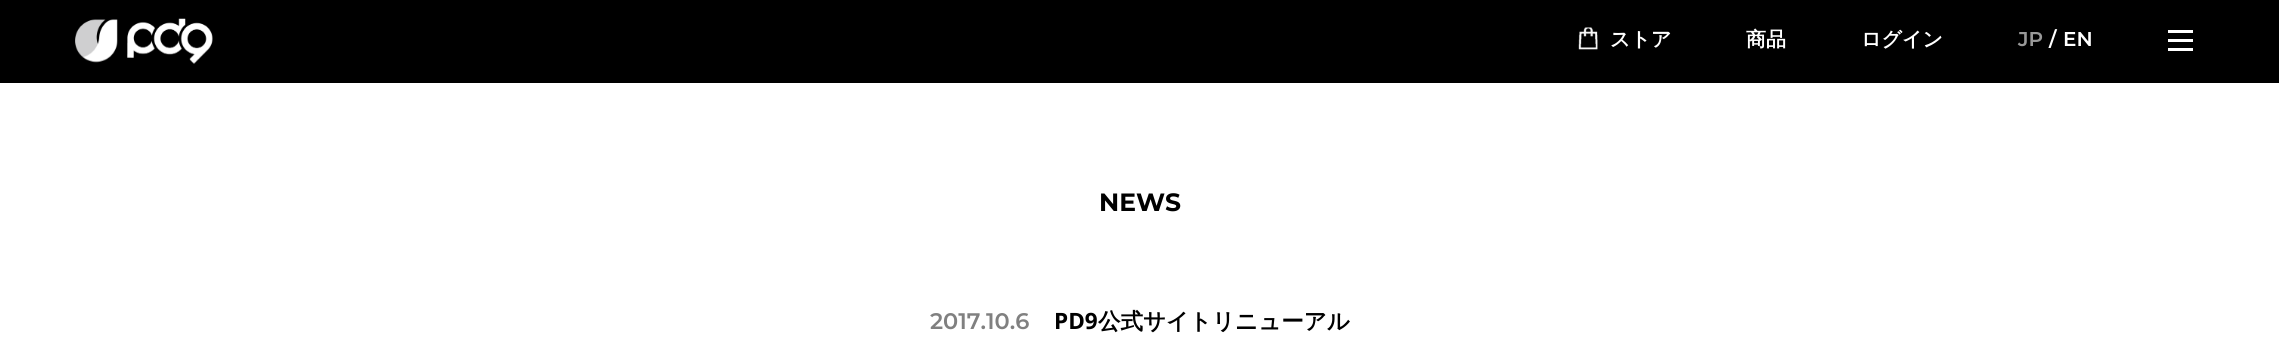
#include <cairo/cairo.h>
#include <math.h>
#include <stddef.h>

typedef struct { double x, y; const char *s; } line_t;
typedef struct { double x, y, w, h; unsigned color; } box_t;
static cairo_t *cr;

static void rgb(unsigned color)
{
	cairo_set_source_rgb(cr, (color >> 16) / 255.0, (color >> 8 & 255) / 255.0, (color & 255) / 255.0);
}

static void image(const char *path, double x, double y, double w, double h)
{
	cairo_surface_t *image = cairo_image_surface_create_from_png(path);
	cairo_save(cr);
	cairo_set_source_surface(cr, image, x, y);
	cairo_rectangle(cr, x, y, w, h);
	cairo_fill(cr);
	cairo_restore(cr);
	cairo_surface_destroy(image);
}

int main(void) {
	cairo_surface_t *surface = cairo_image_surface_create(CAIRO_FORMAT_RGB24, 2279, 344);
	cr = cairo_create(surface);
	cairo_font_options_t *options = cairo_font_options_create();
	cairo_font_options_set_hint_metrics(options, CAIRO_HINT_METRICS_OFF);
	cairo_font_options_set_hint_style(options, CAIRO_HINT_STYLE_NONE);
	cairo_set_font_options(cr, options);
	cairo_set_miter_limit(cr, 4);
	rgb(0xffffff);
	cairo_paint(cr);
	rgb(0x000000);
	cairo_rectangle(cr, 0, 0, 2279, 83);
	cairo_fill(cr);
	image("img/1.png", 75, 18, 138, 46);
	image("img/2.png", 1578, 27, 20, 23);
	{
		static const box_t items[] = {
			{2168, 39, 25, 3, 0xffffff},
			{2168, 30, 25, 3, 0xffffff},
			{2168, 48, 25, 3, 0xffffff},
		};
		for (size_t i = 0; i < sizeof items / sizeof *items; i++) {
			rgb(items[i].color);
			cairo_rectangle(cr, items[i].x, items[i].y, items[i].w, items[i].h);
			cairo_fill(cr);
		}
	}
	cairo_select_font_face(cr, "WenQuanYi Zen Hei", CAIRO_FONT_SLANT_NORMAL, CAIRO_FONT_WEIGHT_BOLD);
	cairo_set_font_size(cr, 20);
	{
		static const line_t items[] = {
			{1610, 46, "ストア"},
			{1746, 46, "商品"},
			{1861, 46, "ログイン"},
		};
		for (size_t i = 0; i < sizeof items / sizeof *items; i++) {
			cairo_move_to(cr, items[i].x, items[i].y);
			cairo_show_text(cr, items[i].s);
		}
	}
	cairo_select_font_face(cr, "Montserrat SemiBold", CAIRO_FONT_SLANT_NORMAL, CAIRO_FONT_WEIGHT_NORMAL);
	rgb(0x999999);
	cairo_move_to(cr, 2018, 46);
	cairo_show_text(cr, "JP");
	rgb(0xffffff);
	cairo_move_to(cr, 2049, 46);
	cairo_show_text(cr, "/");
	cairo_move_to(cr, 2063, 46);
	cairo_show_text(cr, "EN");
	cairo_select_font_face(cr, "Montserrat", CAIRO_FONT_SLANT_NORMAL, CAIRO_FONT_WEIGHT_BOLD);
	cairo_set_font_size(cr, 25);
	rgb(0x000000);
	cairo_move_to(cr, 1099, 211);
	cairo_show_text(cr, "NEWS");
	cairo_select_font_face(cr, "Montserrat SemiBold", CAIRO_FONT_SLANT_NORMAL, CAIRO_FONT_WEIGHT_NORMAL);
	cairo_set_font_size(cr, 22.5);
	rgb(0x808080);
	cairo_move_to(cr, 930, 329);
	cairo_show_text(cr, "2017.10.6");
	cairo_select_font_face(cr, "Open Sans", CAIRO_FONT_SLANT_NORMAL, CAIRO_FONT_WEIGHT_BOLD);
	rgb(0x000000);
	cairo_move_to(cr, 1054, 329);
	cairo_show_text(cr, "PD9");
	cairo_select_font_face(cr, "WenQuanYi Zen Hei", CAIRO_FONT_SLANT_NORMAL, CAIRO_FONT_WEIGHT_BOLD);
	cairo_move_to(cr, 1098, 329);
	cairo_show_text(cr, "公式サイトリニューアル");
	cairo_surface_write_to_png(surface, "page.png");
	cairo_font_options_destroy(options);
	cairo_destroy(cr);
	cairo_surface_destroy(surface);
	return 0;
}
